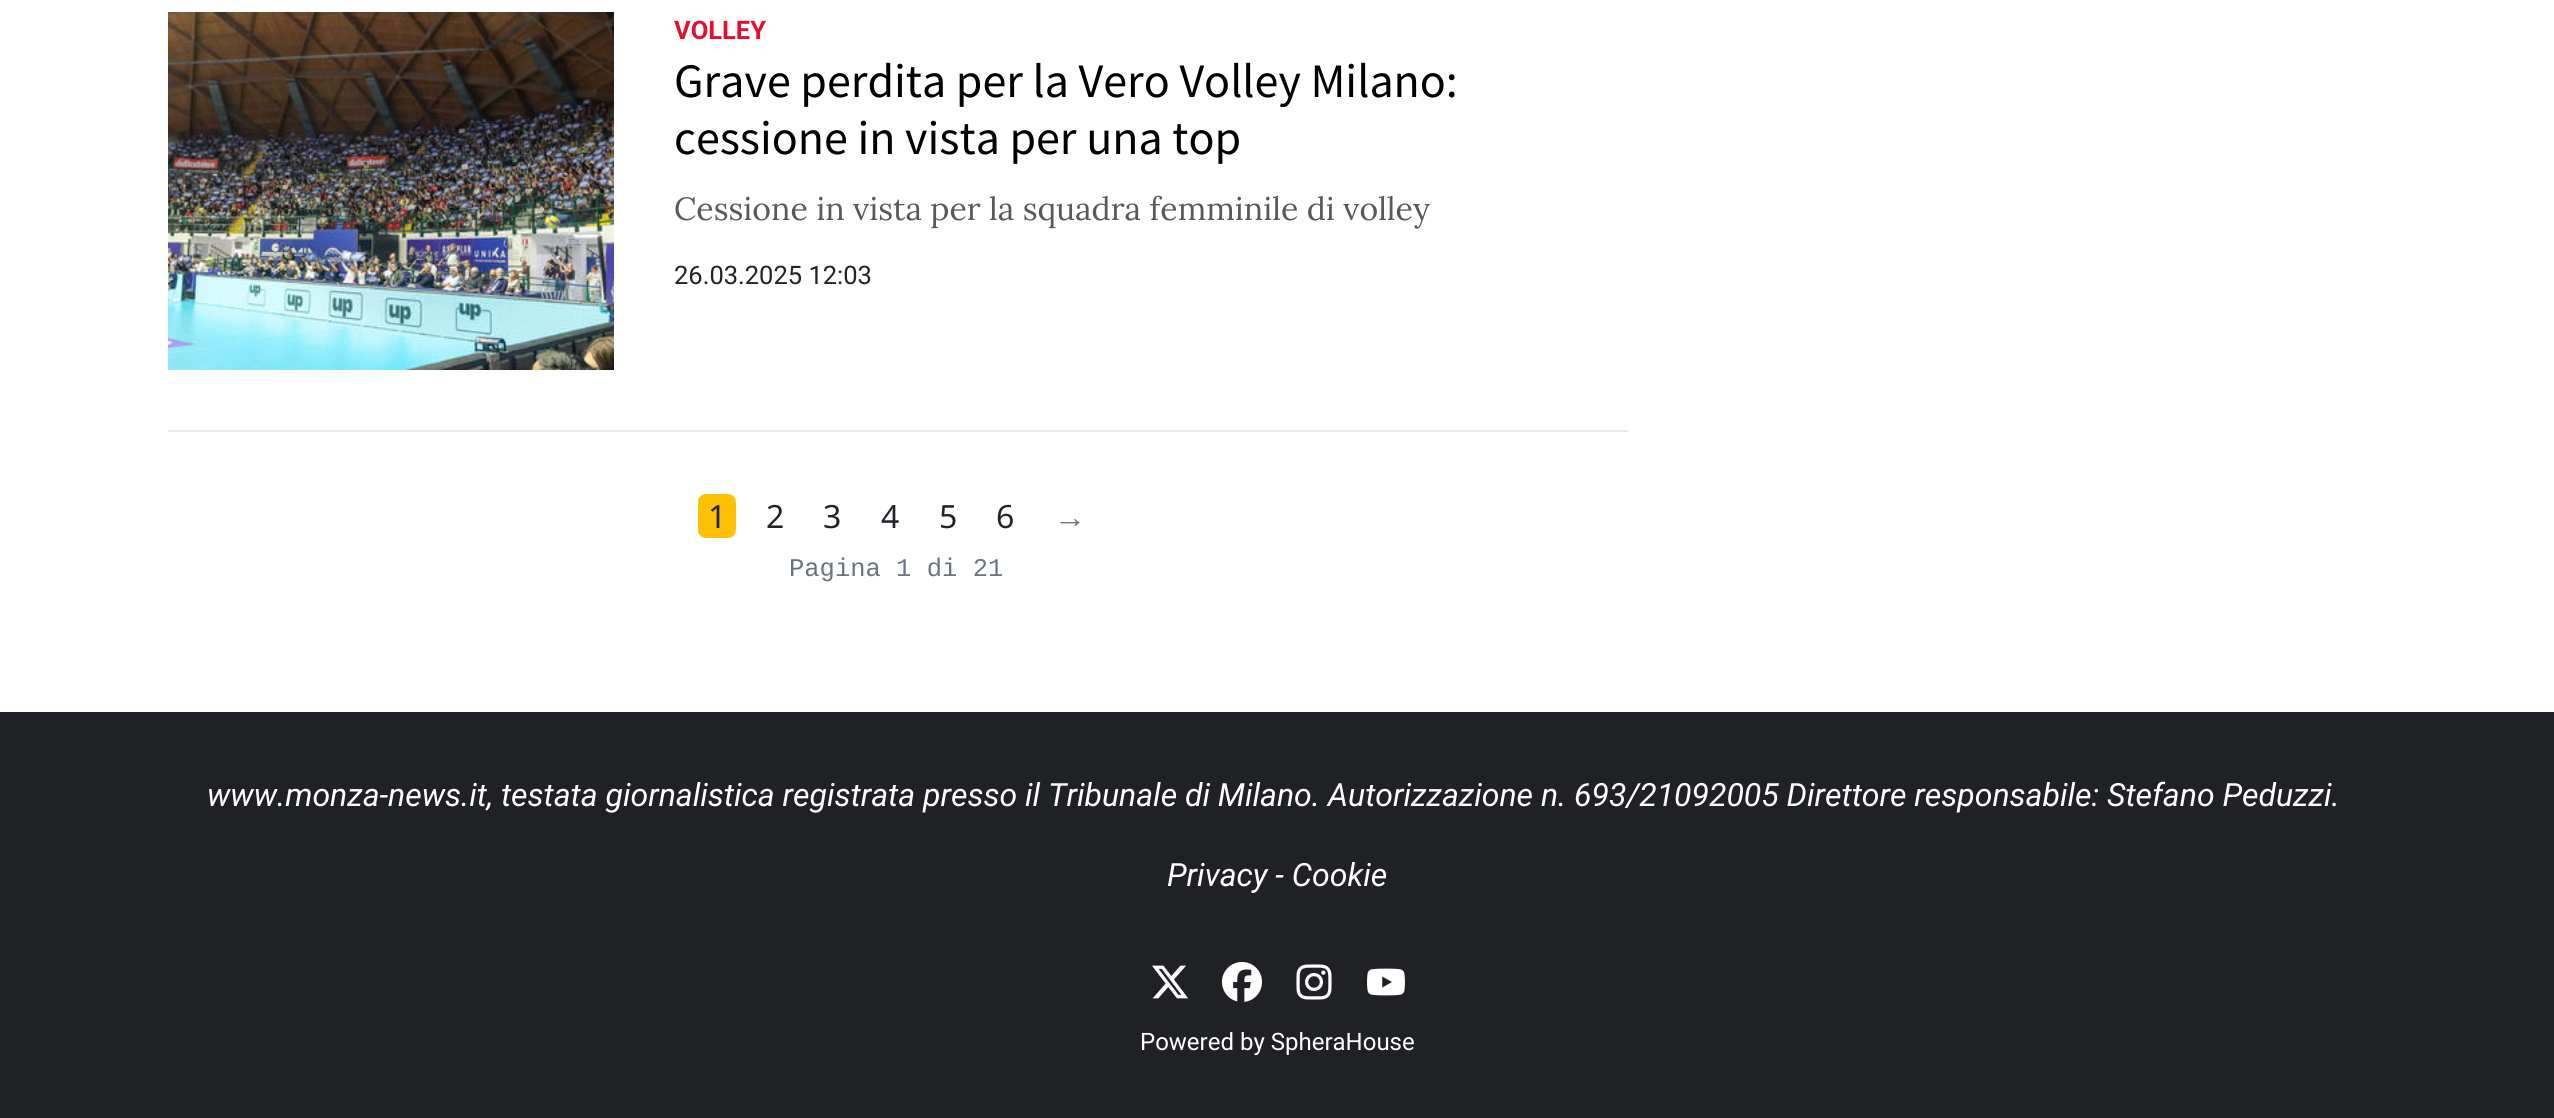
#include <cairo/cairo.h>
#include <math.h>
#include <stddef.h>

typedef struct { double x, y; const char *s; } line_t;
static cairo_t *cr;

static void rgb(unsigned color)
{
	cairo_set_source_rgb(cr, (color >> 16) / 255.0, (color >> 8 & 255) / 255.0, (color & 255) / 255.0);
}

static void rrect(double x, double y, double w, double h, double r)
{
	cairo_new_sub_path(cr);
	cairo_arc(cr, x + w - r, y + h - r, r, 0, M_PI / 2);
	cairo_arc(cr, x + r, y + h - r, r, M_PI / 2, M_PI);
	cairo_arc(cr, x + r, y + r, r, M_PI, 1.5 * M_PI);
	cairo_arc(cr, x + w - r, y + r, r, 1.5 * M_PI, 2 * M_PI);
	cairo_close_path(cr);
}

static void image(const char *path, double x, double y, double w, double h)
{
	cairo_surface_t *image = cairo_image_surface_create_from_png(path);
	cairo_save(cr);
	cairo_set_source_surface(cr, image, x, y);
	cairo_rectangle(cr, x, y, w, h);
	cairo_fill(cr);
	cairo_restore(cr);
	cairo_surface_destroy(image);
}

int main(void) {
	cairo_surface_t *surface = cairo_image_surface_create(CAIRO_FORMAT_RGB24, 2554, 1118);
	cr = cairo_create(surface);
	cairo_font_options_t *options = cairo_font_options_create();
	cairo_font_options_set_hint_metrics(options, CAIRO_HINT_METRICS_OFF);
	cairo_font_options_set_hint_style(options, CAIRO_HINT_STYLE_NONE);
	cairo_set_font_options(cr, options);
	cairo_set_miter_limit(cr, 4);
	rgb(0xffffff);
	cairo_paint(cr);
	rgb(0xebebeb);
	cairo_rectangle(cr, 168, 430, 1460, 2);
	cairo_fill(cr);
	image("img/1.png", 168, 12, 446, 358);
	rgb(0xffc107);
	rrect(698, 494, 38, 44, 8);
	cairo_fill(cr);
	rgb(0x1f2124);
	cairo_rectangle(cr, 0, 712, 2554, 406);
	cairo_fill(cr);
	image("img/2.png", 1152, 965, 37, 34);
	image("img/3.png", 1222, 962, 40, 40);
	image("img/4.png", 1296, 964, 36, 36);
	image("img/5.png", 1367, 968, 38, 28);
	cairo_select_font_face(cr, "Roboto", CAIRO_FONT_SLANT_NORMAL, CAIRO_FONT_WEIGHT_BOLD);
	cairo_set_font_size(cr, 25.5);
	rgb(0xe40e31);
	cairo_move_to(cr, 674, 39);
	cairo_show_text(cr, "VOLLEY");
	cairo_select_font_face(cr, "Source Sans Pro", CAIRO_FONT_SLANT_NORMAL, CAIRO_FONT_WEIGHT_NORMAL);
	cairo_set_font_size(cr, 48);
	rgb(0x000000);
	cairo_move_to(cr, 674, 97);
	cairo_show_text(cr, "Grave perdita per la Vero Volley Milano:");
	cairo_move_to(cr, 674, 154);
	cairo_show_text(cr, "cessione in vista per una top");
	cairo_select_font_face(cr, "Lora", CAIRO_FONT_SLANT_NORMAL, CAIRO_FONT_WEIGHT_NORMAL);
	cairo_set_font_size(cr, 32);
	rgb(0x595959);
	cairo_move_to(cr, 674, 220);
	cairo_show_text(cr, "Cessione in vista per la squadra femminile di volley");
	cairo_select_font_face(cr, "Roboto", CAIRO_FONT_SLANT_NORMAL, CAIRO_FONT_WEIGHT_NORMAL);
	cairo_set_font_size(cr, 25.5);
	rgb(0x212529);
	cairo_move_to(cr, 674, 284);
	cairo_show_text(cr, "26.03.2025 12:03");
	cairo_select_font_face(cr, "Noto Sans", CAIRO_FONT_SLANT_NORMAL, CAIRO_FONT_WEIGHT_NORMAL);
	cairo_set_font_size(cr, 32);
	{
		static const line_t items[] = {
			{708, 528, "1"},
			{766, 528, "2"},
			{823, 528, "3"},
			{881, 528, "4"},
			{939, 528, "5"},
			{996, 528, "6"},
		};
		for (size_t i = 0; i < sizeof items / sizeof *items; i++) {
			cairo_move_to(cr, items[i].x, items[i].y);
			cairo_show_text(cr, items[i].s);
		}
	}
	cairo_select_font_face(cr, "Liberation Sans", CAIRO_FONT_SLANT_NORMAL, CAIRO_FONT_WEIGHT_NORMAL);
	rgb(0x6c757d);
	cairo_move_to(cr, 1054, 528);
	cairo_show_text(cr, "→");
	cairo_select_font_face(cr, "Liberation Mono", CAIRO_FONT_SLANT_NORMAL, CAIRO_FONT_WEIGHT_NORMAL);
	cairo_set_font_size(cr, 25.5);
	cairo_move_to(cr, 789, 576);
	cairo_show_text(cr, "Pagina 1 di 21");
	cairo_select_font_face(cr, "Roboto", CAIRO_FONT_SLANT_ITALIC, CAIRO_FONT_WEIGHT_NORMAL);
	cairo_set_font_size(cr, 32);
	rgb(0xffffff);
	cairo_move_to(cr, 207, 806);
	cairo_show_text(cr, "www.monza-news.it, testata giornalistica registrata presso il Tribunale di Milano. Autorizzazione n. 693/21092005 Direttore responsabile: Stefano Peduzzi.");
	cairo_move_to(cr, 1167, 886);
	cairo_show_text(cr, "Privacy - Cookie");
	cairo_select_font_face(cr, "Roboto", CAIRO_FONT_SLANT_NORMAL, CAIRO_FONT_WEIGHT_NORMAL);
	cairo_set_font_size(cr, 24);
	cairo_move_to(cr, 1140, 1050);
	cairo_show_text(cr, "Powered by SpheraHouse");
	cairo_surface_write_to_png(surface, "page.png");
	cairo_font_options_destroy(options);
	cairo_destroy(cr);
	cairo_surface_destroy(surface);
	return 0;
}
